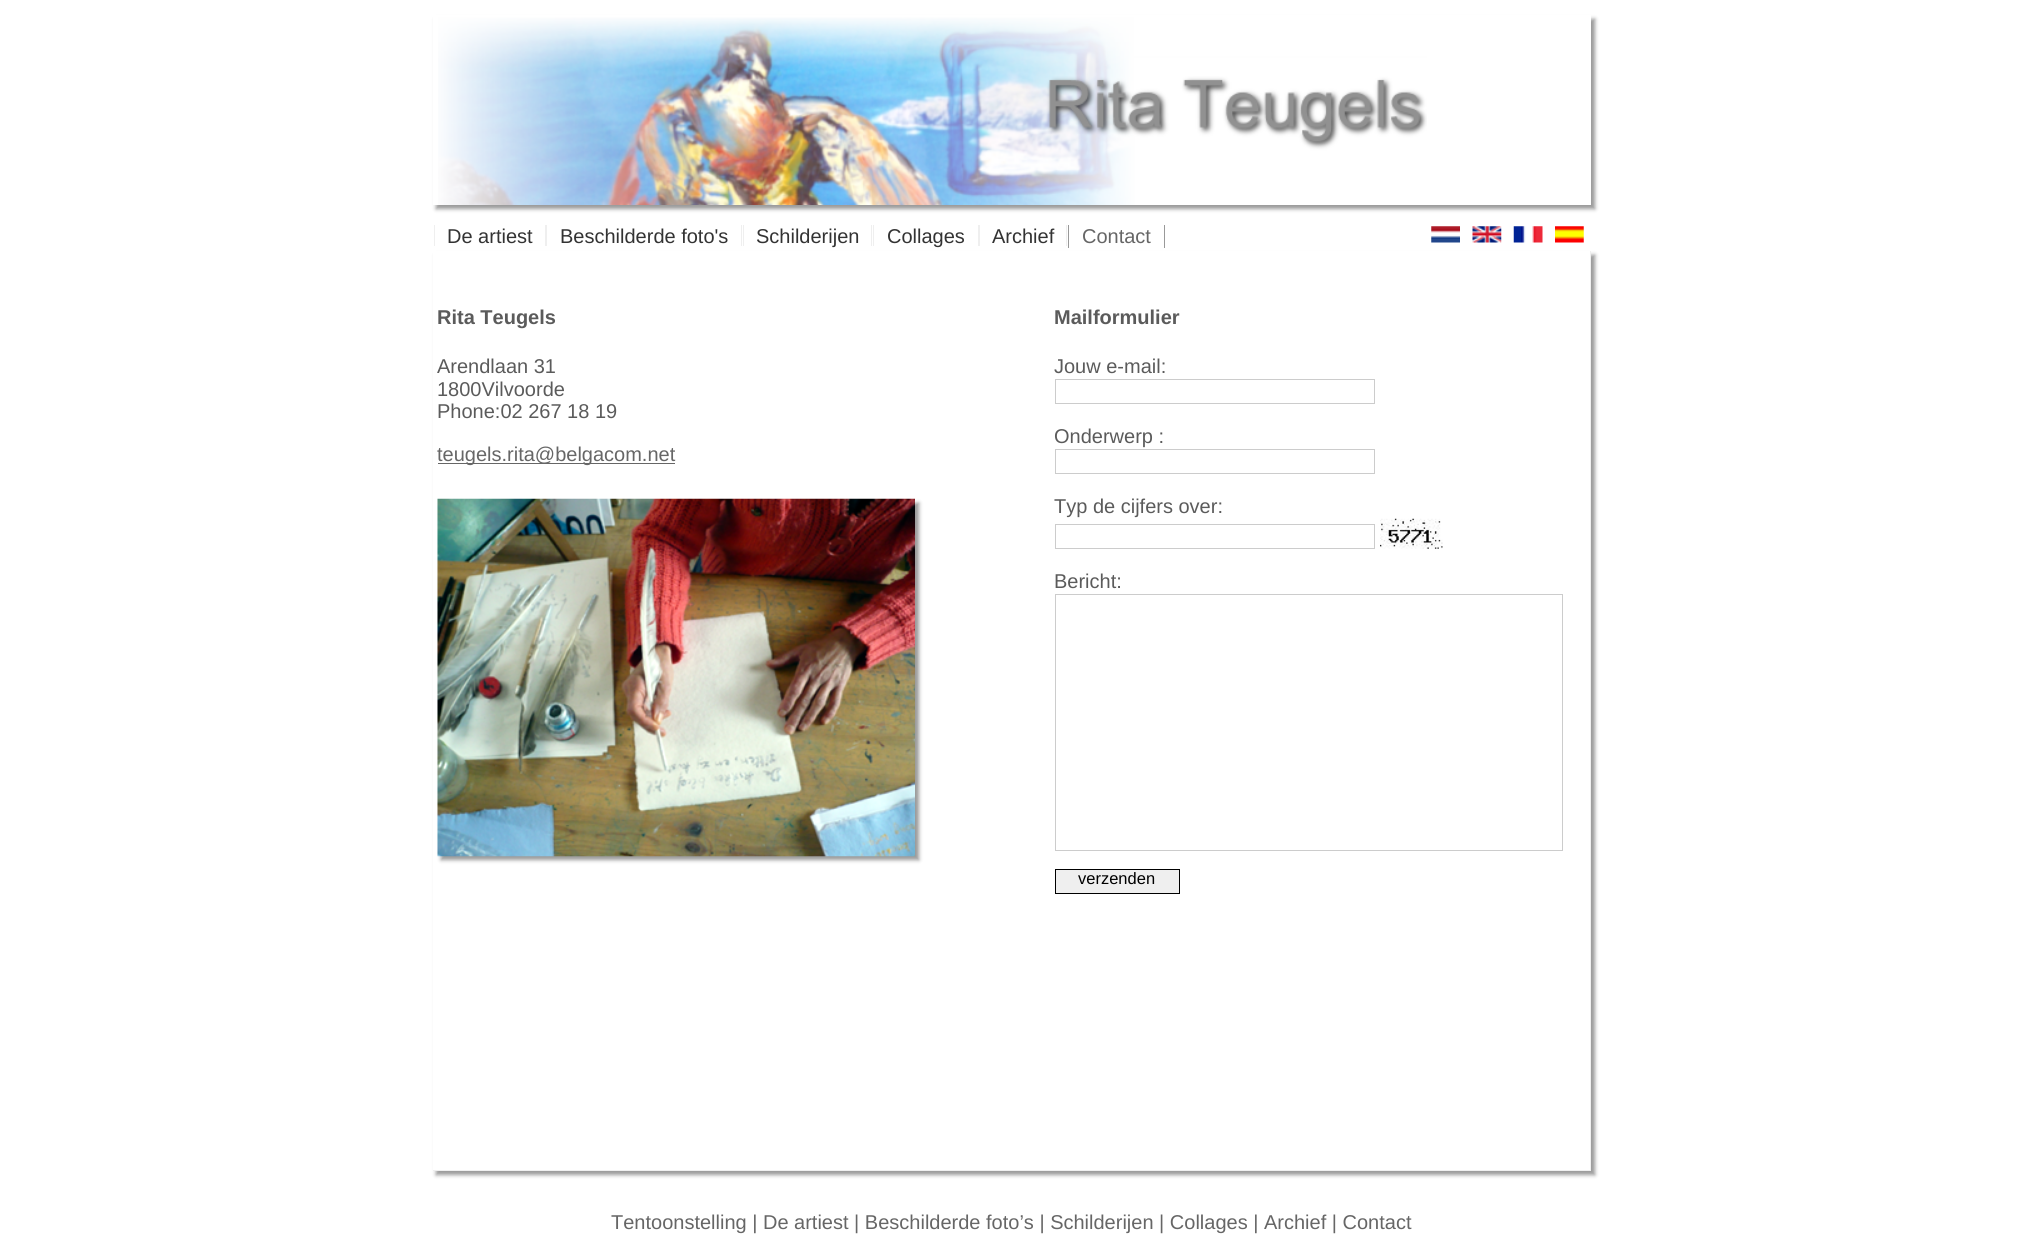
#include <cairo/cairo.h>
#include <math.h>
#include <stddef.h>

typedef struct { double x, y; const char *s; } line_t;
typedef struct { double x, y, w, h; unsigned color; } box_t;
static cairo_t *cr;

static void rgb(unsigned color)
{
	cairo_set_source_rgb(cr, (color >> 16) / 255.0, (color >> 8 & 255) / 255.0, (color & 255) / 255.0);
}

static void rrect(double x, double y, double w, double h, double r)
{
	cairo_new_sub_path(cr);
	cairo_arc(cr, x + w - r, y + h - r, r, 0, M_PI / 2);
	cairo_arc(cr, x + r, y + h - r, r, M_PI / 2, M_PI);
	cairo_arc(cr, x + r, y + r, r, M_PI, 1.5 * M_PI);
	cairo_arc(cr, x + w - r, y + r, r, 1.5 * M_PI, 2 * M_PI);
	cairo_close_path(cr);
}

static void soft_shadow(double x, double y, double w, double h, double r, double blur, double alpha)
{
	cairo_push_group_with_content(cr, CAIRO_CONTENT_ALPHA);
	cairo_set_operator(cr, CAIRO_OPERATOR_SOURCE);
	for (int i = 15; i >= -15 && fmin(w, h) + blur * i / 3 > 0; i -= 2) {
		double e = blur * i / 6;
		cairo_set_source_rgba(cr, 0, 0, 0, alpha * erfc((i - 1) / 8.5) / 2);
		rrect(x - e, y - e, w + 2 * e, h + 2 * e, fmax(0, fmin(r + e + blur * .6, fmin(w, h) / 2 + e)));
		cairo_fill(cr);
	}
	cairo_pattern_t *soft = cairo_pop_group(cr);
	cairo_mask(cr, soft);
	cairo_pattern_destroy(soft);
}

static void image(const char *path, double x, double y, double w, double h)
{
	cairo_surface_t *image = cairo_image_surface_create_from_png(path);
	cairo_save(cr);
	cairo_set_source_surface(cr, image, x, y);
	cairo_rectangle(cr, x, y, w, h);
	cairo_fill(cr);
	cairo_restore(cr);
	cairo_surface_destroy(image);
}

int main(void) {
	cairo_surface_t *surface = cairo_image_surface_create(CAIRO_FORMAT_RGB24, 2022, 1247);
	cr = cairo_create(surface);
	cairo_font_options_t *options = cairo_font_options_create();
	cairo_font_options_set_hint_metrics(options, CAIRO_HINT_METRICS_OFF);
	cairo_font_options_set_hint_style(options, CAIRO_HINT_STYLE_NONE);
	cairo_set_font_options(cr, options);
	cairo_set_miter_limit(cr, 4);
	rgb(0xffffff);
	cairo_paint(cr);
	cairo_save(cr);
	cairo_set_fill_rule(cr, CAIRO_FILL_RULE_EVEN_ODD);
	cairo_new_path(cr);
	cairo_move_to(cr, 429, 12);
	cairo_line_to(cr, 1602, 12);
	cairo_line_to(cr, 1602, 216);
	cairo_line_to(cr, 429, 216);
	cairo_close_path(cr);
	cairo_move_to(cr, 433, 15);
	cairo_line_to(cr, 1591, 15);
	cairo_line_to(cr, 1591, 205);
	cairo_line_to(cr, 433, 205);
	cairo_close_path(cr);
	cairo_clip(cr);
	rgb(0x999999);
	soft_shadow(436, 19, 1159, 190, 0, 2, 1);
	cairo_restore(cr);
	image("img/1.png", 438, 17, 989, 188);
	{
		static const box_t items[] = {
			{545, 225, 2, 21, 0xefefef},
			{434, 225, 1, 21, 0xefefef},
			{741, 225, 1, 21, 0xefefef},
			{871, 225, 1, 21, 0xefefef},
			{743, 225, 1, 21, 0xefefef},
			{978, 225, 2, 21, 0xefefef},
			{873, 225, 1, 21, 0xefefef},
			{1066, 225, 1, 21, 0xefefef},
			{1164, 225, 1, 23, 0x999999},
			{1068, 225, 1, 23, 0x999999},
		};
		for (size_t i = 0; i < sizeof items / sizeof *items; i++) {
			rgb(items[i].color);
			cairo_rectangle(cr, items[i].x, items[i].y, items[i].w, items[i].h);
			cairo_fill(cr);
		}
	}
	image("img/2.png", 1431, 226, 29, 17);
	image("img/3.png", 1472, 226, 30, 17);
	image("img/4.png", 1513, 226, 30, 17);
	image("img/5.png", 1555, 226, 29, 17);
	cairo_save(cr);
	cairo_set_fill_rule(cr, CAIRO_FILL_RULE_EVEN_ODD);
	cairo_new_path(cr);
	cairo_move_to(cr, 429, 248);
	cairo_line_to(cr, 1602, 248);
	cairo_line_to(cr, 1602, 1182);
	cairo_line_to(cr, 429, 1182);
	cairo_close_path(cr);
	cairo_move_to(cr, 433, 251);
	cairo_line_to(cr, 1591, 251);
	cairo_line_to(cr, 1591, 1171);
	cairo_line_to(cr, 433, 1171);
	cairo_close_path(cr);
	cairo_clip(cr);
	rgb(0x999999);
	soft_shadow(436, 255, 1159, 920, 0, 2, 1);
	cairo_restore(cr);
	{
		static const box_t items[] = {
			{1590, 251, 1, 920, 0xefefef},
			{433, 1170, 1158, 1, 0xefefef},
			{438, 463, 237, 1, 0x666666},
		};
		for (size_t i = 0; i < sizeof items / sizeof *items; i++) {
			rgb(items[i].color);
			cairo_rectangle(cr, items[i].x, items[i].y, items[i].w, items[i].h);
			cairo_fill(cr);
		}
	}
	rgb(0x999999);
	soft_shadow(441, 503, 478, 357, 0, 2, 1);
	image("img/6.png", 437, 498, 478, 359);
	cairo_rectangle(cr, 1055.5, 379.5, 319, 24);
	rgb(0xcccccc);
	cairo_set_line_width(cr, 1);
	cairo_stroke(cr);
	cairo_rectangle(cr, 1055.5, 449.5, 319, 24);
	cairo_stroke(cr);
	cairo_rectangle(cr, 1055.5, 524.5, 319, 24);
	cairo_stroke(cr);
	image("img/7.png", 1380, 518, 63, 31);
	cairo_rectangle(cr, 1055.5, 594.5, 507, 256);
	cairo_stroke(cr);
	rgb(0xefefef);
	cairo_rectangle(cr, 1055.5, 869.5, 124, 24);
	cairo_fill_preserve(cr);
	rgb(0x000000);
	cairo_stroke(cr);
	cairo_select_font_face(cr, "Liberation Sans", CAIRO_FONT_SLANT_NORMAL, CAIRO_FONT_WEIGHT_NORMAL);
	cairo_set_font_size(cr, 20);
	rgb(0x333333);
	{
		static const line_t items[] = {
			{447, 243, "De artiest"},
			{560, 243, "Beschilderde foto's"},
			{756, 243, "Schilderijen"},
			{887, 243, "Collages"},
			{992, 243, "Archief"},
		};
		for (size_t i = 0; i < sizeof items / sizeof *items; i++) {
			cairo_move_to(cr, items[i].x, items[i].y);
			cairo_show_text(cr, items[i].s);
		}
	}
	rgb(0x666666);
	cairo_move_to(cr, 1082, 243);
	cairo_show_text(cr, "Contact");
	cairo_select_font_face(cr, "Liberation Sans", CAIRO_FONT_SLANT_NORMAL, CAIRO_FONT_WEIGHT_BOLD);
	rgb(0x5b5b5b);
	cairo_move_to(cr, 437, 324);
	cairo_show_text(cr, "Rita Teugels");
	cairo_select_font_face(cr, "Liberation Sans", CAIRO_FONT_SLANT_NORMAL, CAIRO_FONT_WEIGHT_NORMAL);
	{
		static const line_t items[] = {
			{437, 373, "Arendlaan 31"},
			{437, 396, "1800Vilvoorde"},
			{437, 418, "Phone:02 267 18 19"},
		};
		for (size_t i = 0; i < sizeof items / sizeof *items; i++) {
			cairo_move_to(cr, items[i].x, items[i].y);
			cairo_show_text(cr, items[i].s);
		}
	}
	rgb(0x666666);
	cairo_move_to(cr, 437, 461);
	cairo_show_text(cr, "teugels.rita@belgacom.net");
	cairo_select_font_face(cr, "Liberation Sans", CAIRO_FONT_SLANT_NORMAL, CAIRO_FONT_WEIGHT_BOLD);
	rgb(0x5b5b5b);
	cairo_move_to(cr, 1054, 324);
	cairo_show_text(cr, "Mailformulier");
	cairo_select_font_face(cr, "Liberation Sans", CAIRO_FONT_SLANT_NORMAL, CAIRO_FONT_WEIGHT_NORMAL);
	{
		static const line_t items[] = {
			{1054, 373, "Jouw e-mail:"},
			{1054, 443, "Onderwerp :"},
			{1054, 513, "Typ de cijfers over:"},
			{1054, 588, "Bericht:"},
		};
		for (size_t i = 0; i < sizeof items / sizeof *items; i++) {
			cairo_move_to(cr, items[i].x, items[i].y);
			cairo_show_text(cr, items[i].s);
		}
	}
	cairo_set_font_size(cr, 16.5);
	rgb(0x000000);
	cairo_move_to(cr, 1078, 884);
	cairo_show_text(cr, "verzenden");
	cairo_set_font_size(cr, 20);
	rgb(0x666666);
	cairo_move_to(cr, 611, 1229);
	cairo_show_text(cr, "Tentoonstelling | De artiest | Beschilderde foto’s | Schilderijen | Collages | Archief | Contact");
	cairo_surface_write_to_png(surface, "page.png");
	cairo_font_options_destroy(options);
	cairo_destroy(cr);
	cairo_surface_destroy(surface);
	return 0;
}
